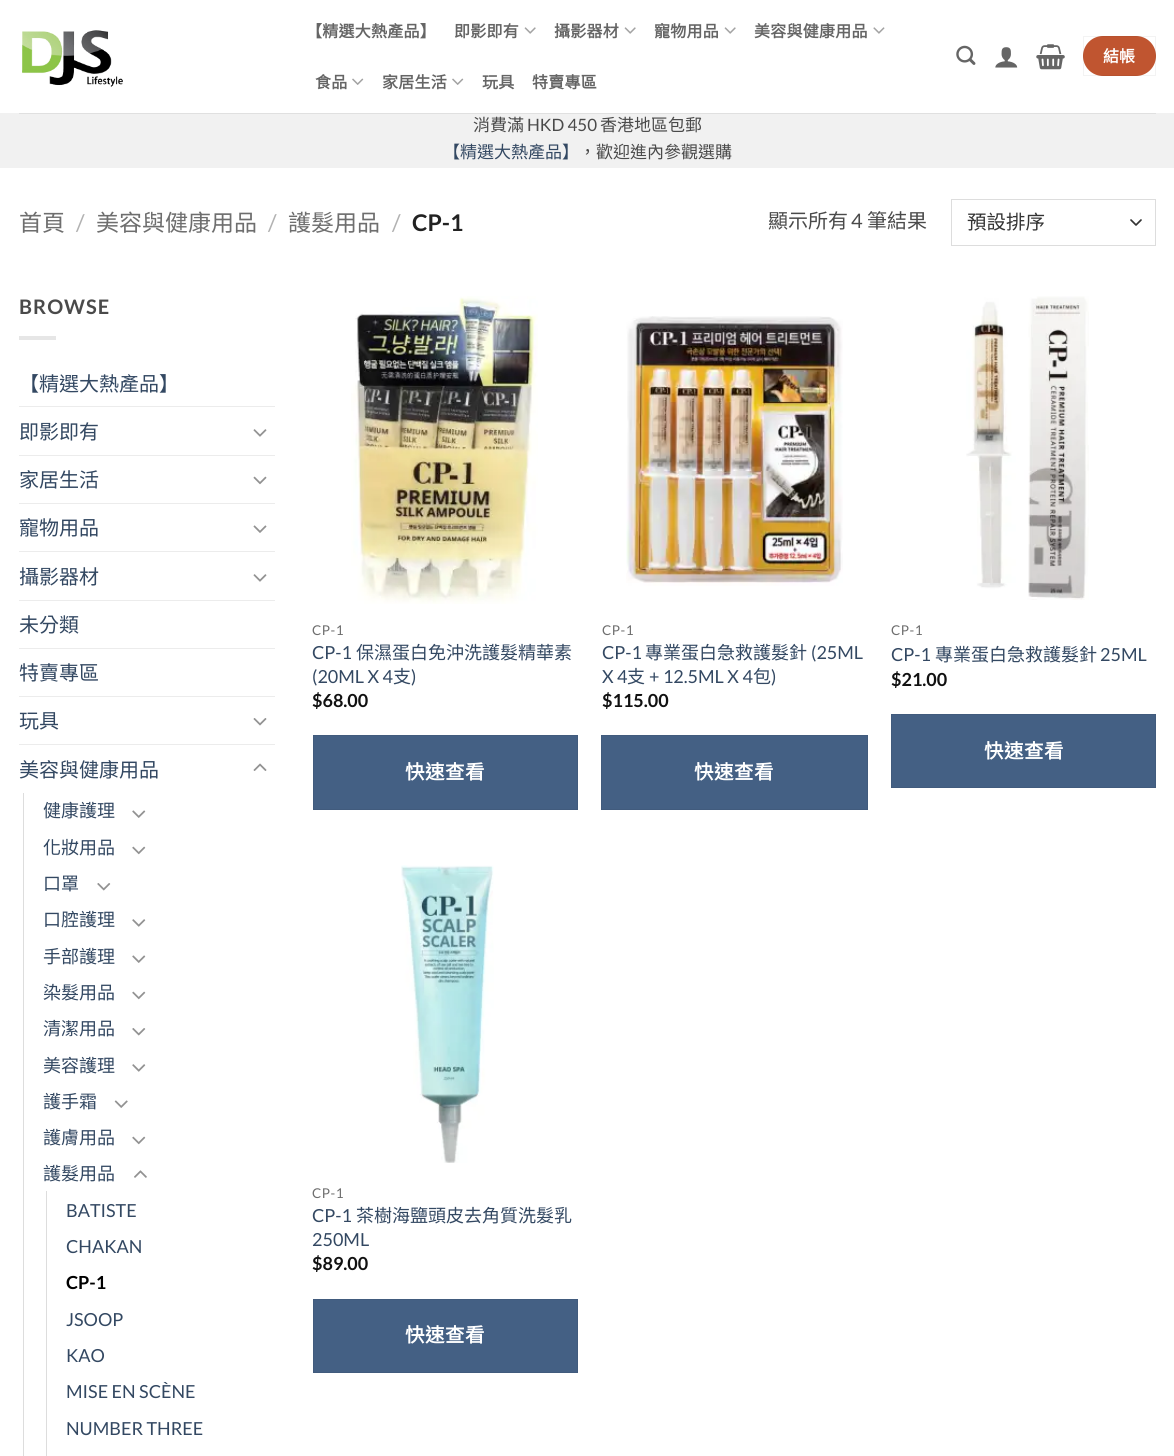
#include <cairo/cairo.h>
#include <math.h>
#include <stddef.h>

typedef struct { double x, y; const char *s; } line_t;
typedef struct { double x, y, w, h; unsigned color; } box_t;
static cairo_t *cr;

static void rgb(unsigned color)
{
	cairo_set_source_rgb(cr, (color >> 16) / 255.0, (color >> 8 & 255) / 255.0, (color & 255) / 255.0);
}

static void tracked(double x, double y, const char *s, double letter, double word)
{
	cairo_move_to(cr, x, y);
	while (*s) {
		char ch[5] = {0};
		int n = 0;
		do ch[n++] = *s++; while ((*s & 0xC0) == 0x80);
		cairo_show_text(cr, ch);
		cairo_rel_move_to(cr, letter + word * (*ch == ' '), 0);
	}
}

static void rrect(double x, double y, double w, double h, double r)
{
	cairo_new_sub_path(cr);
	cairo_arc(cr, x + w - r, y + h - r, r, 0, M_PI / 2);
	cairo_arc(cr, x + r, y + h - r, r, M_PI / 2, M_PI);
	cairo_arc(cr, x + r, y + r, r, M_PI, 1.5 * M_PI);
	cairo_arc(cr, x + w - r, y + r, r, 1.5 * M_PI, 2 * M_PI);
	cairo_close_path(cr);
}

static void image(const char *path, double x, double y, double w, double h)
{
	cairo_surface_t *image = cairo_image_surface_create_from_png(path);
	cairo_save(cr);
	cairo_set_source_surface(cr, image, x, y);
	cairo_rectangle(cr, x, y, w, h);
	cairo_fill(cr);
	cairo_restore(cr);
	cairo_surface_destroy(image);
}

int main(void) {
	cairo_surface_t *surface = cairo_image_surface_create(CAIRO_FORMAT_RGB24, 1174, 1456);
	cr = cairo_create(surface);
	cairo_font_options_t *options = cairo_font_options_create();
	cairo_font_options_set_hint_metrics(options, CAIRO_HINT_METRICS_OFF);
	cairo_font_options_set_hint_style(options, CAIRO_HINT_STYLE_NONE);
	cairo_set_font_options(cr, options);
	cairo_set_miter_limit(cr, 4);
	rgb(0xffffff);
	cairo_paint(cr);
	image("img/1.png", 22, 30, 101, 57);
	image("img/2.png", 524, 27, 12, 7);
	image("img/2.png", 624, 27, 12, 7);
	image("img/2.png", 724, 27, 12, 7);
	image("img/3.png", 873, 27, 12, 7);
	image("img/4.png", 352, 78, 12, 7);
	image("img/4.png", 452, 78, 12, 7);
	image("img/5.png", 956, 45, 20, 20);
	image("img/6.png", 995, 47, 23, 21);
	image("img/7.png", 1036, 44, 29, 26);
	rgb(0xc05530);
	rrect(1083, 36, 73, 40, 20);
	cairo_fill(cr);
	cairo_rectangle(cr, 1083.5, 36.5, 72, 39);
	cairo_set_source_rgba(cr, 0, 0, 0, 0.05);
	cairo_set_line_width(cr, 1);
	cairo_stroke(cr);
	rgb(0xf1f1f1);
	cairo_rectangle(cr, 0, 113, 1174, 55);
	cairo_fill(cr);
	rgb(0xe0e0e0);
	cairo_rectangle(cr, 19, 113, 1137, 1);
	cairo_fill(cr);
	cairo_new_path(cr);
	cairo_move_to(cr, 1131, 220);
	cairo_line_to(cr, 1136, 225);
	cairo_line_to(cr, 1141, 220);
	rgb(0x333333);
	cairo_set_line_width(cr, 1.7);
	cairo_set_line_cap(cr, CAIRO_LINE_CAP_ROUND);
	cairo_set_line_join(cr, CAIRO_LINE_JOIN_ROUND);
	cairo_stroke(cr);
	cairo_rectangle(cr, 951.5, 199.5, 204, 46);
	rgb(0xdddddd);
	cairo_set_line_width(cr, 1);
	cairo_set_line_cap(cr, CAIRO_LINE_CAP_BUTT);
	cairo_set_line_join(cr, CAIRO_LINE_JOIN_MITER);
	cairo_stroke(cr);
	rgb(0xe6e6e6);
	cairo_rectangle(cr, 19, 336, 37, 4);
	cairo_fill(cr);
	rgb(0xececec);
	cairo_rectangle(cr, 19, 406, 256, 1);
	cairo_fill(cr);
	image("img/8.png", 253, 429, 14, 8);
	cairo_rectangle(cr, 19, 455, 256, 1);
	cairo_fill(cr);
	image("img/9.png", 253, 476, 14, 9);
	cairo_rectangle(cr, 19, 503, 256, 1);
	cairo_fill(cr);
	image("img/10.png", 253, 525, 14, 8);
	cairo_rectangle(cr, 19, 551, 256, 1);
	cairo_fill(cr);
	image("img/8.png", 253, 574, 14, 8);
	{
		static const box_t items[] = {
			{19, 600, 256, 1, 0xececec},
			{19, 648, 256, 1, 0xececec},
			{19, 696, 256, 1, 0xececec},
		};
		for (size_t i = 0; i < sizeof items / sizeof *items; i++) {
			rgb(items[i].color);
			cairo_rectangle(cr, items[i].x, items[i].y, items[i].w, items[i].h);
			cairo_fill(cr);
		}
	}
	image("img/11.png", 253, 718, 14, 8);
	cairo_rectangle(cr, 19, 744, 256, 1);
	cairo_fill(cr);
	image("img/12.png", 253, 763, 14, 8);
	rgb(0xdddddd);
	cairo_rectangle(cr, 23, 793, 1, 663);
	cairo_fill(cr);
	image("img/13.png", 132, 810, 14, 8);
	image("img/14.png", 132, 846, 14, 9);
	image("img/15.png", 97, 883, 14, 8);
	image("img/16.png", 132, 919, 14, 8);
	image("img/13.png", 132, 955, 14, 8);
	image("img/14.png", 132, 991, 14, 9);
	image("img/15.png", 132, 1028, 14, 8);
	image("img/16.png", 132, 1064, 14, 8);
	image("img/17.png", 114, 1100, 14, 8);
	image("img/14.png", 132, 1136, 14, 9);
	image("img/18.png", 134, 1170, 13, 8);
	cairo_rectangle(cr, 46, 1191, 1, 265);
	cairo_fill(cr);
	image("img/19.png", 351, 296, 187, 308);
	rgb(0x446084);
	cairo_rectangle(cr, 313.5, 735.5, 264, 74);
	cairo_fill_preserve(cr);
	rgb(0x415b7d);
	cairo_stroke(cr);
	image("img/20.png", 626, 316, 217, 270);
	rgb(0x446084);
	cairo_rectangle(cr, 601.5, 735.5, 266, 74);
	cairo_fill_preserve(cr);
	rgb(0x415b7d);
	cairo_stroke(cr);
	image("img/21.png", 966, 296, 123, 304);
	rgb(0x446084);
	cairo_rectangle(cr, 891.5, 714.5, 264, 73);
	cairo_fill_preserve(cr);
	rgb(0x415b7d);
	cairo_stroke(cr);
	image("img/22.png", 401, 865, 93, 298);
	rgb(0x446084);
	cairo_rectangle(cr, 313.5, 1299.5, 264, 73);
	cairo_fill_preserve(cr);
	rgb(0x415b7d);
	cairo_stroke(cr);
	cairo_select_font_face(cr, "Noto Sans CJK TC", CAIRO_FONT_SLANT_NORMAL, CAIRO_FONT_WEIGHT_BOLD);
	cairo_set_font_size(cr, 16);
	rgb(0x656565);
	{
		static const line_t items[] = {
			{306, 37, "【精選大熱產品】"},
			{454, 37, "即影即有"},
			{554, 37, "攝影器材"},
			{654, 37, "寵物用品"},
			{754, 37, "美容與健康用品"},
			{315, 88, "食品"},
			{382, 88, "家居生活"},
			{482, 88, "玩具"},
			{532, 88, "特賣專區"},
		};
		for (size_t i = 0; i < sizeof items / sizeof *items; i++) {
			tracked(items[i].x, items[i].y, items[i].s, 0.25, 0);
		}
	}
	rgb(0xffffff);
	cairo_move_to(cr, 1103, 62);
	cairo_show_text(cr, "結帳");
	cairo_select_font_face(cr, "Noto Sans CJK TC", CAIRO_FONT_SLANT_NORMAL, CAIRO_FONT_WEIGHT_NORMAL);
	cairo_set_font_size(cr, 17);
	rgb(0x4a4a4a);
	cairo_move_to(cr, 473, 131);
	cairo_show_text(cr, "消費滿");
	cairo_select_font_face(cr, "Lato", CAIRO_FONT_SLANT_NORMAL, CAIRO_FONT_WEIGHT_NORMAL);
	cairo_move_to(cr, 527, 131);
	cairo_show_text(cr, "HKD 450");
	cairo_select_font_face(cr, "Noto Sans CJK TC", CAIRO_FONT_SLANT_NORMAL, CAIRO_FONT_WEIGHT_NORMAL);
	cairo_move_to(cr, 600, 131);
	cairo_show_text(cr, "香港地區包郵");
	rgb(0x334862);
	cairo_move_to(cr, 443, 158);
	cairo_show_text(cr, "【精選大熱產品】");
	rgb(0x4a4a4a);
	cairo_move_to(cr, 579, 158);
	cairo_show_text(cr, "，歡迎進內參觀選購");
	cairo_set_font_size(cr, 23);
	rgb(0x6e6e6e);
	cairo_move_to(cr, 19, 231);
	cairo_show_text(cr, "首頁");
	cairo_select_font_face(cr, "Lato", CAIRO_FONT_SLANT_NORMAL, CAIRO_FONT_WEIGHT_NORMAL);
	rgb(0xb2b2b2);
	cairo_move_to(cr, 76, 231);
	cairo_show_text(cr, "/");
	cairo_select_font_face(cr, "Noto Sans CJK TC", CAIRO_FONT_SLANT_NORMAL, CAIRO_FONT_WEIGHT_NORMAL);
	rgb(0x6e6e6e);
	cairo_move_to(cr, 96, 231);
	cairo_show_text(cr, "美容與健康用品");
	cairo_select_font_face(cr, "Lato", CAIRO_FONT_SLANT_NORMAL, CAIRO_FONT_WEIGHT_NORMAL);
	rgb(0xb2b2b2);
	cairo_move_to(cr, 268, 231);
	cairo_show_text(cr, "/");
	cairo_select_font_face(cr, "Noto Sans CJK TC", CAIRO_FONT_SLANT_NORMAL, CAIRO_FONT_WEIGHT_NORMAL);
	rgb(0x6e6e6e);
	cairo_move_to(cr, 288, 231);
	cairo_show_text(cr, "護髮用品");
	cairo_select_font_face(cr, "Lato", CAIRO_FONT_SLANT_NORMAL, CAIRO_FONT_WEIGHT_NORMAL);
	rgb(0xb2b2b2);
	cairo_move_to(cr, 392, 231);
	cairo_show_text(cr, "/");
	cairo_select_font_face(cr, "Lato", CAIRO_FONT_SLANT_NORMAL, CAIRO_FONT_WEIGHT_BOLD);
	rgb(0x222222);
	cairo_move_to(cr, 412, 231);
	cairo_show_text(cr, "CP-1");
	cairo_select_font_face(cr, "Noto Sans CJK TC", CAIRO_FONT_SLANT_NORMAL, CAIRO_FONT_WEIGHT_NORMAL);
	cairo_set_font_size(cr, 20);
	rgb(0x4a4a4a);
	cairo_move_to(cr, 768, 228);
	cairo_show_text(cr, "顯示所有");
	cairo_select_font_face(cr, "Lato", CAIRO_FONT_SLANT_NORMAL, CAIRO_FONT_WEIGHT_NORMAL);
	cairo_move_to(cr, 851, 228);
	cairo_show_text(cr, "4");
	cairo_select_font_face(cr, "Noto Sans CJK TC", CAIRO_FONT_SLANT_NORMAL, CAIRO_FONT_WEIGHT_NORMAL);
	cairo_move_to(cr, 867, 228);
	cairo_show_text(cr, "筆結果");
	cairo_set_font_size(cr, 19.5);
	rgb(0x333333);
	cairo_move_to(cr, 967, 229);
	cairo_show_text(cr, "預設排序");
	cairo_select_font_face(cr, "Lato", CAIRO_FONT_SLANT_NORMAL, CAIRO_FONT_WEIGHT_BOLD);
	cairo_set_font_size(cr, 20);
	rgb(0x4a4a4a);
	tracked(19, 314, "BROWSE", 1, 0);
	cairo_select_font_face(cr, "Noto Sans CJK TC", CAIRO_FONT_SLANT_NORMAL, CAIRO_FONT_WEIGHT_NORMAL);
	rgb(0x334862);
	{
		static const line_t items[] = {
			{19, 391, "【精選大熱產品】"},
			{19, 439, "即影即有"},
			{19, 487, "家居生活"},
			{19, 535, "寵物用品"},
			{19, 584, "攝影器材"},
			{19, 632, "未分類"},
			{19, 680, "特賣專區"},
			{19, 728, "玩具"},
			{19, 777, "美容與健康用品"},
		};
		for (size_t i = 0; i < sizeof items / sizeof *items; i++) {
			cairo_move_to(cr, items[i].x, items[i].y);
			cairo_show_text(cr, items[i].s);
		}
	}
	cairo_set_font_size(cr, 18);
	{
		static const line_t items[] = {
			{43, 817, "健康護理"},
			{43, 854, "化妝用品"},
			{43, 890, "口罩"},
			{43, 926, "口腔護理"},
			{43, 963, "手部護理"},
			{43, 999, "染髮用品"},
			{43, 1035, "清潔用品"},
			{43, 1072, "美容護理"},
			{43, 1108, "護手霜"},
			{43, 1144, "護膚用品"},
			{43, 1180, "護髮用品"},
		};
		for (size_t i = 0; i < sizeof items / sizeof *items; i++) {
			cairo_move_to(cr, items[i].x, items[i].y);
			cairo_show_text(cr, items[i].s);
		}
	}
	cairo_select_font_face(cr, "Lato", CAIRO_FONT_SLANT_NORMAL, CAIRO_FONT_WEIGHT_NORMAL);
	cairo_move_to(cr, 66, 1217);
	cairo_show_text(cr, "BATISTE");
	cairo_move_to(cr, 66, 1253);
	cairo_show_text(cr, "CHAKAN");
	cairo_select_font_face(cr, "Lato", CAIRO_FONT_SLANT_NORMAL, CAIRO_FONT_WEIGHT_BOLD);
	rgb(0x000000);
	cairo_move_to(cr, 66, 1289);
	cairo_show_text(cr, "CP-1");
	cairo_select_font_face(cr, "Lato", CAIRO_FONT_SLANT_NORMAL, CAIRO_FONT_WEIGHT_NORMAL);
	rgb(0x334862);
	{
		static const line_t items[] = {
			{66, 1326, "JSOOP"},
			{66, 1362, "KAO"},
			{66, 1398, "MISE EN SCÈNE"},
			{66, 1435, "NUMBER THREE"},
		};
		for (size_t i = 0; i < sizeof items / sizeof *items; i++) {
			cairo_move_to(cr, items[i].x, items[i].y);
			cairo_show_text(cr, items[i].s);
		}
	}
	cairo_set_font_size(cr, 13.5);
	rgb(0x6e6e6e);
	tracked(312, 635, "CP-1", 0.5, 0);
	cairo_set_font_size(cr, 18);
	rgb(0x334862);
	cairo_move_to(cr, 312, 659);
	cairo_show_text(cr, "CP-1");
	cairo_select_font_face(cr, "Noto Sans CJK TC", CAIRO_FONT_SLANT_NORMAL, CAIRO_FONT_WEIGHT_NORMAL);
	cairo_move_to(cr, 356, 659);
	cairo_show_text(cr, "保濕蛋白免沖洗護髮精華素");
	cairo_select_font_face(cr, "Lato", CAIRO_FONT_SLANT_NORMAL, CAIRO_FONT_WEIGHT_NORMAL);
	cairo_move_to(cr, 312, 683);
	cairo_show_text(cr, "(20ML X 4");
	cairo_select_font_face(cr, "Noto Sans CJK TC", CAIRO_FONT_SLANT_NORMAL, CAIRO_FONT_WEIGHT_NORMAL);
	cairo_move_to(cr, 393, 683);
	cairo_show_text(cr, "支");
	cairo_select_font_face(cr, "Lato", CAIRO_FONT_SLANT_NORMAL, CAIRO_FONT_WEIGHT_NORMAL);
	cairo_move_to(cr, 411, 683);
	cairo_show_text(cr, ")");
	cairo_select_font_face(cr, "Lato", CAIRO_FONT_SLANT_NORMAL, CAIRO_FONT_WEIGHT_BOLD);
	rgb(0x111111);
	cairo_move_to(cr, 312, 707);
	cairo_show_text(cr, "$68.00");
	cairo_select_font_face(cr, "Noto Sans CJK TC", CAIRO_FONT_SLANT_NORMAL, CAIRO_FONT_WEIGHT_BOLD);
	cairo_set_font_size(cr, 19.5);
	rgb(0xffffff);
	tracked(405, 779, "快速查看", 0.5, 0);
	cairo_select_font_face(cr, "Lato", CAIRO_FONT_SLANT_NORMAL, CAIRO_FONT_WEIGHT_NORMAL);
	cairo_set_font_size(cr, 13.5);
	rgb(0x6e6e6e);
	tracked(602, 635, "CP-1", 0.5, 0);
	cairo_set_font_size(cr, 18);
	rgb(0x334862);
	cairo_move_to(cr, 602, 659);
	cairo_show_text(cr, "CP-1");
	cairo_select_font_face(cr, "Noto Sans CJK TC", CAIRO_FONT_SLANT_NORMAL, CAIRO_FONT_WEIGHT_NORMAL);
	cairo_move_to(cr, 645, 659);
	cairo_show_text(cr, "專業蛋白急救護髮針");
	cairo_select_font_face(cr, "Lato", CAIRO_FONT_SLANT_NORMAL, CAIRO_FONT_WEIGHT_NORMAL);
	cairo_move_to(cr, 811, 659);
	cairo_show_text(cr, "(25ML");
	cairo_move_to(cr, 602, 683);
	cairo_show_text(cr, "X 4");
	cairo_select_font_face(cr, "Noto Sans CJK TC", CAIRO_FONT_SLANT_NORMAL, CAIRO_FONT_WEIGHT_NORMAL);
	cairo_move_to(cr, 627, 683);
	cairo_show_text(cr, "支");
	cairo_select_font_face(cr, "Lato", CAIRO_FONT_SLANT_NORMAL, CAIRO_FONT_WEIGHT_NORMAL);
	cairo_move_to(cr, 649, 683);
	cairo_show_text(cr, "+ 12.5ML X 4");
	cairo_select_font_face(cr, "Noto Sans CJK TC", CAIRO_FONT_SLANT_NORMAL, CAIRO_FONT_WEIGHT_NORMAL);
	cairo_move_to(cr, 753, 683);
	cairo_show_text(cr, "包");
	cairo_select_font_face(cr, "Lato", CAIRO_FONT_SLANT_NORMAL, CAIRO_FONT_WEIGHT_NORMAL);
	cairo_move_to(cr, 771, 683);
	cairo_show_text(cr, ")");
	cairo_select_font_face(cr, "Lato", CAIRO_FONT_SLANT_NORMAL, CAIRO_FONT_WEIGHT_BOLD);
	rgb(0x111111);
	cairo_move_to(cr, 602, 707);
	cairo_show_text(cr, "$115.00");
	cairo_select_font_face(cr, "Noto Sans CJK TC", CAIRO_FONT_SLANT_NORMAL, CAIRO_FONT_WEIGHT_BOLD);
	cairo_set_font_size(cr, 19.5);
	rgb(0xffffff);
	tracked(694, 779, "快速查看", 0.5, 0);
	cairo_select_font_face(cr, "Lato", CAIRO_FONT_SLANT_NORMAL, CAIRO_FONT_WEIGHT_NORMAL);
	cairo_set_font_size(cr, 13.5);
	rgb(0x6e6e6e);
	tracked(891, 635, "CP-1", 0.5, 0);
	cairo_set_font_size(cr, 18);
	rgb(0x334862);
	cairo_move_to(cr, 891, 661);
	cairo_show_text(cr, "CP-1");
	cairo_select_font_face(cr, "Noto Sans CJK TC", CAIRO_FONT_SLANT_NORMAL, CAIRO_FONT_WEIGHT_NORMAL);
	cairo_move_to(cr, 935, 661);
	cairo_show_text(cr, "專業蛋白急救護髮針");
	cairo_select_font_face(cr, "Lato", CAIRO_FONT_SLANT_NORMAL, CAIRO_FONT_WEIGHT_NORMAL);
	cairo_move_to(cr, 1100, 661);
	cairo_show_text(cr, "25ML");
	cairo_select_font_face(cr, "Lato", CAIRO_FONT_SLANT_NORMAL, CAIRO_FONT_WEIGHT_BOLD);
	rgb(0x111111);
	cairo_move_to(cr, 891, 686);
	cairo_show_text(cr, "$21.00");
	cairo_select_font_face(cr, "Noto Sans CJK TC", CAIRO_FONT_SLANT_NORMAL, CAIRO_FONT_WEIGHT_BOLD);
	cairo_set_font_size(cr, 19.5);
	rgb(0xffffff);
	tracked(984, 758, "快速查看", 0.5, 0);
	cairo_select_font_face(cr, "Lato", CAIRO_FONT_SLANT_NORMAL, CAIRO_FONT_WEIGHT_NORMAL);
	cairo_set_font_size(cr, 13.5);
	rgb(0x6e6e6e);
	tracked(312, 1198, "CP-1", 0.5, 0);
	cairo_set_font_size(cr, 18);
	rgb(0x334862);
	cairo_move_to(cr, 312, 1222);
	cairo_show_text(cr, "CP-1");
	cairo_select_font_face(cr, "Noto Sans CJK TC", CAIRO_FONT_SLANT_NORMAL, CAIRO_FONT_WEIGHT_NORMAL);
	cairo_move_to(cr, 356, 1222);
	cairo_show_text(cr, "茶樹海鹽頭皮去角質洗髮乳");
	cairo_select_font_face(cr, "Lato", CAIRO_FONT_SLANT_NORMAL, CAIRO_FONT_WEIGHT_NORMAL);
	cairo_move_to(cr, 312, 1246);
	cairo_show_text(cr, "250ML");
	cairo_select_font_face(cr, "Lato", CAIRO_FONT_SLANT_NORMAL, CAIRO_FONT_WEIGHT_BOLD);
	rgb(0x111111);
	cairo_move_to(cr, 312, 1270);
	cairo_show_text(cr, "$89.00");
	cairo_select_font_face(cr, "Noto Sans CJK TC", CAIRO_FONT_SLANT_NORMAL, CAIRO_FONT_WEIGHT_BOLD);
	cairo_set_font_size(cr, 19.5);
	rgb(0xffffff);
	tracked(405, 1342, "快速查看", 0.5, 0);
	cairo_surface_write_to_png(surface, "page.png");
	cairo_font_options_destroy(options);
	cairo_destroy(cr);
	cairo_surface_destroy(surface);
	return 0;
}
